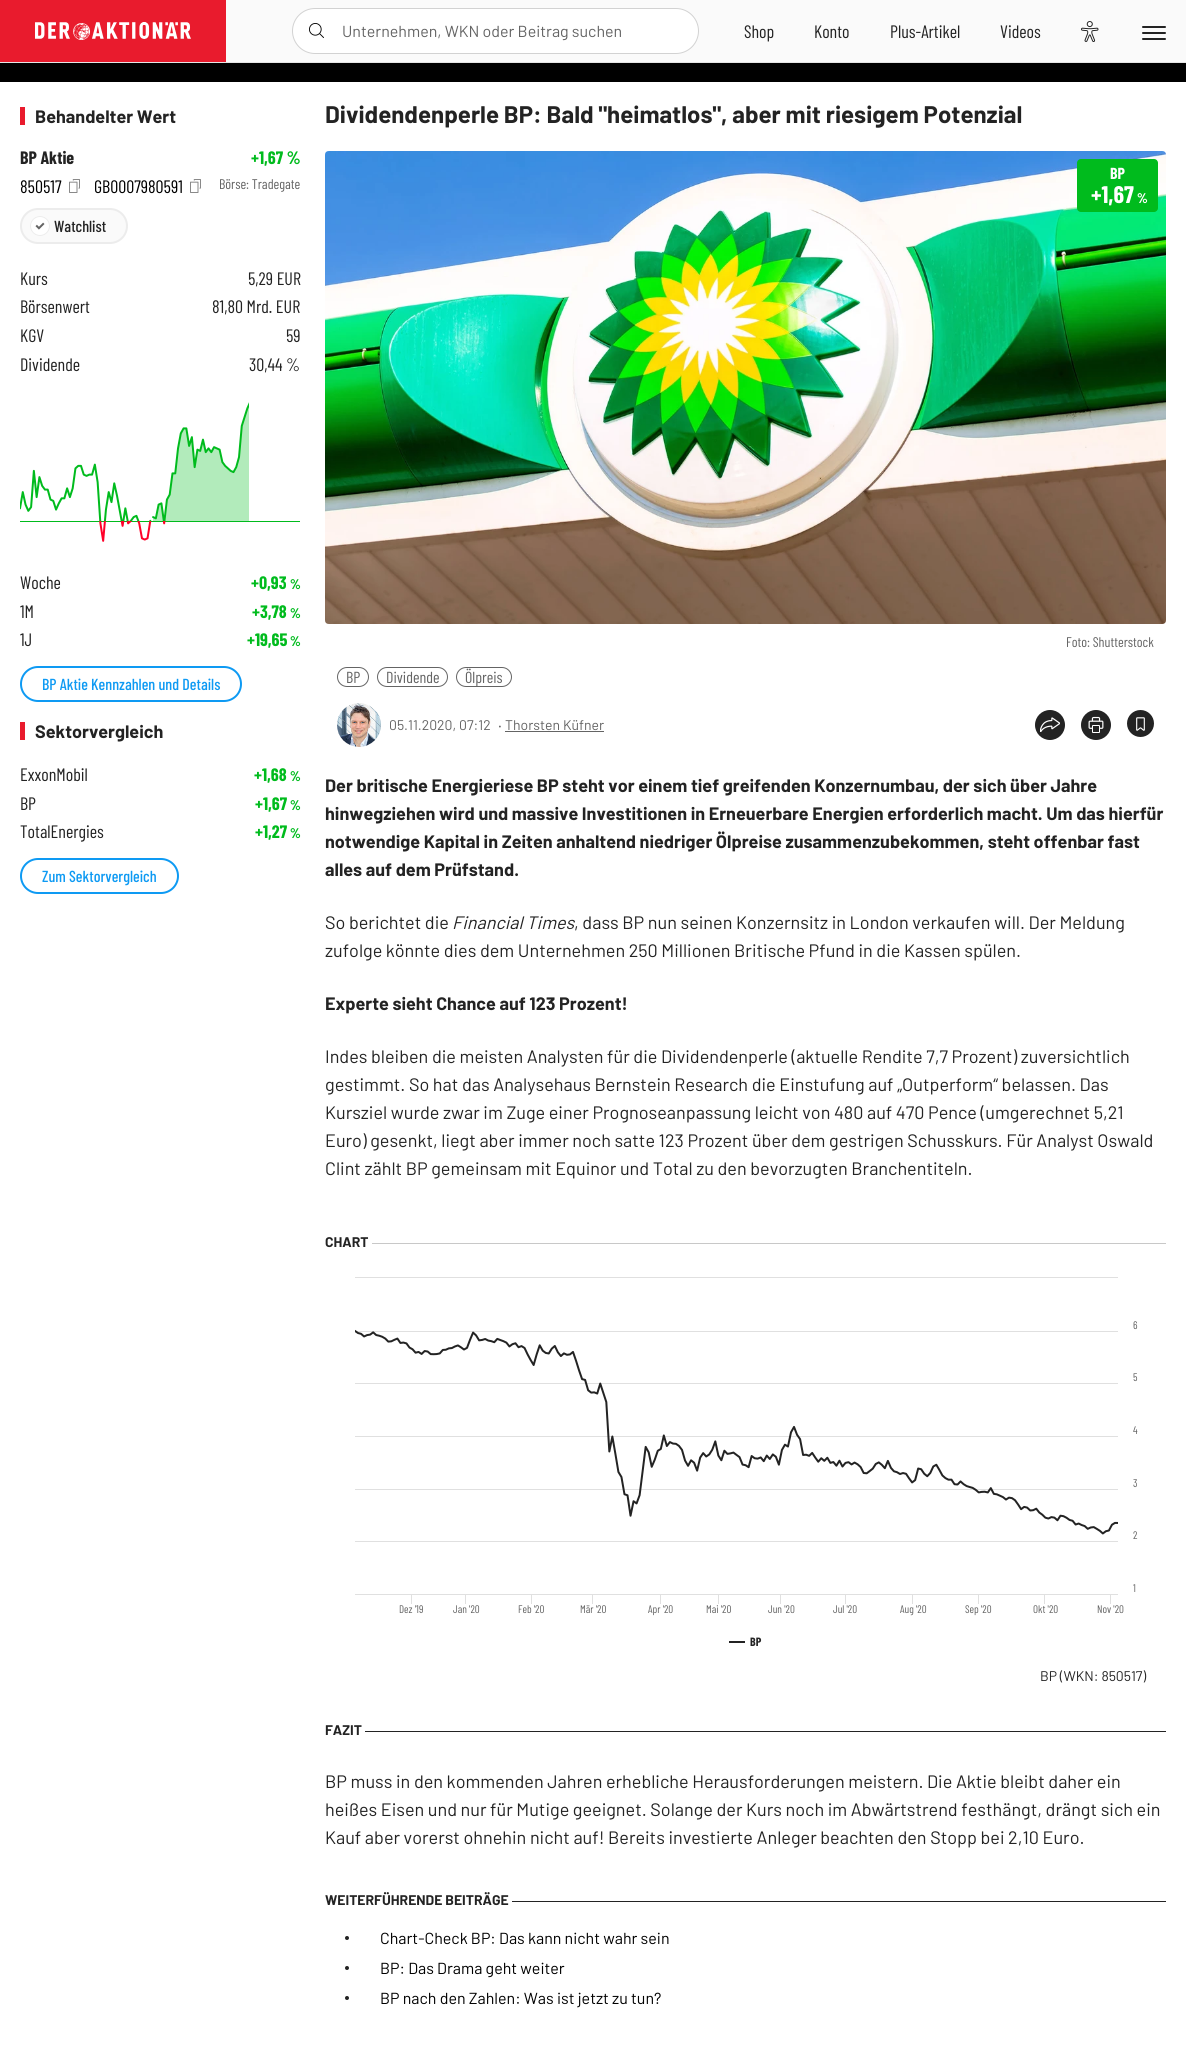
#include <cairo/cairo.h>
#include <math.h>
#include <stddef.h>

typedef struct { double x, y; const char *s; } line_t;
typedef struct { double x, y, w, h; unsigned color; } box_t;
static cairo_t *cr;

static void rgb(unsigned color)
{
	cairo_set_source_rgb(cr, (color >> 16) / 255.0, (color >> 8 & 255) / 255.0, (color & 255) / 255.0);
}

static void rrect(double x, double y, double w, double h, double r)
{
	cairo_new_sub_path(cr);
	cairo_arc(cr, x + w - r, y + h - r, r, 0, M_PI / 2);
	cairo_arc(cr, x + r, y + h - r, r, M_PI / 2, M_PI);
	cairo_arc(cr, x + r, y + r, r, M_PI, 1.5 * M_PI);
	cairo_arc(cr, x + w - r, y + r, r, 1.5 * M_PI, 2 * M_PI);
	cairo_close_path(cr);
}

static void image(const char *path, double x, double y, double w, double h)
{
	cairo_surface_t *image = cairo_image_surface_create_from_png(path);
	cairo_save(cr);
	cairo_set_source_surface(cr, image, x, y);
	cairo_rectangle(cr, x, y, w, h);
	cairo_fill(cr);
	cairo_restore(cr);
	cairo_surface_destroy(image);
}

int main(void) {
	cairo_surface_t *surface = cairo_image_surface_create(CAIRO_FORMAT_RGB24, 1186, 2057);
	cr = cairo_create(surface);
	cairo_font_options_t *options = cairo_font_options_create();
	cairo_font_options_set_hint_metrics(options, CAIRO_HINT_METRICS_OFF);
	cairo_font_options_set_hint_style(options, CAIRO_HINT_STYLE_NONE);
	cairo_set_font_options(cr, options);
	cairo_set_miter_limit(cr, 4);
	rgb(0x000000);
	cairo_paint(cr);
	{
		static const box_t items[] = {
			{226, 0, 960, 62, 0xfafafa},
			{0, 62, 1186, 1, 0xe6e6e6},
			{0, 0, 226, 62, 0xe91b2d},
		};
		for (size_t i = 0; i < sizeof items / sizeof *items; i++) {
			rgb(items[i].color);
			cairo_rectangle(cr, items[i].x, items[i].y, items[i].w, items[i].h);
			cairo_fill(cr);
		}
	}
	image("img/1.png", 35, 22, 156, 18);
	rgb(0xffffff);
	rrect(292.5, 8.5, 406, 45, 22.5);
	cairo_fill_preserve(cr);
	rgb(0xd2d2d2);
	cairo_set_line_width(cr, 1);
	cairo_stroke(cr);
	image("img/2.png", 309, 23, 15, 15);
	image("img/3.png", 1081, 21, 18, 21);
	rgb(0x232323);
	rrect(1142, 32, 24, 2, 1);
	cairo_fill(cr);
	rrect(1142, 26, 24, 2, 1);
	cairo_fill(cr);
	rrect(1142, 38, 24, 2, 1);
	cairo_fill(cr);
	rgb(0xffffff);
	cairo_rectangle(cr, 0, 82, 1186, 1975);
	cairo_fill(cr);
	rgb(0xe91b2d);
	cairo_rectangle(cr, 20, 107, 5, 18);
	cairo_fill(cr);
	image("img/4.png", 69, 179, 11, 14);
	image("img/4.png", 190, 179, 11, 14);
	rgb(0xfafafa);
	rrect(21, 209, 106, 34, 17);
	cairo_fill_preserve(cr);
	rgb(0xececec);
	cairo_set_line_width(cr, 2);
	cairo_stroke(cr);
	image("img/5.png", 30, 216, 20, 20);
	image("img/6.png", 20, 402, 280, 140);
	rrect(21, 667, 220, 34, 17);
	rgb(0x0e9af3);
	cairo_stroke(cr);
	rgb(0xe91b2d);
	cairo_rectangle(cr, 20, 722, 5, 18);
	cairo_fill(cr);
	rrect(21, 859, 157, 34, 17);
	rgb(0x0e9af3);
	cairo_stroke(cr);
	image("img/7.png", 325, 151, 841, 473);
	rgb(0x00bb1d);
	rrect(1077, 159, 81, 53, 4);
	cairo_fill(cr);
	rrect(337.5, 667.5, 31, 19, 9.5);
	rgb(0x646464);
	cairo_set_line_width(cr, 1);
	cairo_stroke(cr);
	rrect(377.5, 667.5, 70, 19, 9.5);
	cairo_stroke(cr);
	rrect(456.5, 667.5, 55, 19, 9.5);
	cairo_stroke(cr);
	image("img/8.png", 337, 703, 44, 44);
	cairo_rectangle(cr, 505, 731, 99, 1);
	cairo_fill(cr);
	image("img/9.png", 1035, 710, 30, 30);
	image("img/10.png", 1081, 710, 30, 30);
	image("img/11.png", 1127, 710, 27, 27);
	rgb(0xc8c8c8);
	cairo_rectangle(cr, 372, 1243, 794, 1);
	cairo_fill(cr);
	image("img/12.png", 355, 1277, 763, 366);
	rgb(0x232323);
	cairo_rectangle(cr, 365, 1731, 801, 1);
	cairo_fill(cr);
	cairo_rectangle(cr, 512, 1901, 654, 1);
	cairo_fill(cr);
	cairo_arc(cr, 347, 1938, 2, 0, 2 * M_PI);
	cairo_fill(cr);
	cairo_arc(cr, 347, 1968, 2, 0, 2 * M_PI);
	cairo_fill(cr);
	cairo_arc(cr, 347, 1998, 2, 0, 2 * M_PI);
	cairo_fill(cr);
	cairo_select_font_face(cr, "Barlow", CAIRO_FONT_SLANT_NORMAL, CAIRO_FONT_WEIGHT_NORMAL);
	cairo_set_font_size(cr, 16);
	rgb(0x646464);
	cairo_move_to(cr, 342, 37);
	cairo_show_text(cr, "Unternehmen, WKN oder Beitrag suchen");
	cairo_select_font_face(cr, "Barlow Condensed", CAIRO_FONT_SLANT_NORMAL, CAIRO_FONT_WEIGHT_NORMAL);
	cairo_set_font_size(cr, 18);
	rgb(0x232323);
	{
		static const line_t items[] = {
			{744, 38, "Shop"},
			{814, 38, "Konto"},
			{890, 38, "Plus-Artikel"},
			{1000, 38, "Videos"},
		};
		for (size_t i = 0; i < sizeof items / sizeof *items; i++) {
			cairo_move_to(cr, items[i].x, items[i].y);
			cairo_show_text(cr, items[i].s);
		}
	}
	cairo_select_font_face(cr, "Barlow", CAIRO_FONT_SLANT_NORMAL, CAIRO_FONT_WEIGHT_BOLD);
	cairo_move_to(cr, 35, 123);
	cairo_show_text(cr, "Behandelter Wert");
	cairo_select_font_face(cr, "Barlow Condensed", CAIRO_FONT_SLANT_NORMAL, CAIRO_FONT_WEIGHT_BOLD);
	cairo_move_to(cr, 20, 164);
	cairo_show_text(cr, "BP Aktie");
	rgb(0x00bb1d);
	cairo_move_to(cr, 251, 164);
	cairo_show_text(cr, "+1,67 %");
	cairo_select_font_face(cr, "Barlow Condensed", CAIRO_FONT_SLANT_NORMAL, CAIRO_FONT_WEIGHT_NORMAL);
	rgb(0x000000);
	cairo_move_to(cr, 20, 193);
	cairo_show_text(cr, "850517");
	cairo_move_to(cr, 94, 193);
	cairo_show_text(cr, "GB0007980591");
	cairo_set_font_size(cr, 14);
	rgb(0x646464);
	cairo_move_to(cr, 219, 189);
	cairo_show_text(cr, "Börse: Tradegate");
	cairo_select_font_face(cr, "Barlow Condensed Medium", CAIRO_FONT_SLANT_NORMAL, CAIRO_FONT_WEIGHT_NORMAL);
	cairo_set_font_size(cr, 16);
	rgb(0x232323);
	cairo_move_to(cr, 54, 232);
	cairo_show_text(cr, "Watchlist");
	cairo_select_font_face(cr, "Barlow Condensed", CAIRO_FONT_SLANT_NORMAL, CAIRO_FONT_WEIGHT_NORMAL);
	cairo_set_font_size(cr, 18);
	{
		static const line_t items[] = {
			{20, 285, "Kurs"},
			{248, 285, "5,29 EUR"},
			{20, 313, "Börsenwert"},
			{212, 313, "81,80 Mrd. EUR"},
			{20, 342, "KGV"},
			{286, 342, "59"},
			{20, 371, "Dividende"},
			{249, 371, "30,44 %"},
			{20, 589, "Woche"},
		};
		for (size_t i = 0; i < sizeof items / sizeof *items; i++) {
			cairo_move_to(cr, items[i].x, items[i].y);
			cairo_show_text(cr, items[i].s);
		}
	}
	cairo_select_font_face(cr, "Barlow Condensed", CAIRO_FONT_SLANT_NORMAL, CAIRO_FONT_WEIGHT_BOLD);
	rgb(0x00bb1d);
	cairo_move_to(cr, 251, 589);
	cairo_show_text(cr, "+0,93");
	cairo_set_font_size(cr, 14);
	cairo_move_to(cr, 290, 589);
	cairo_show_text(cr, "%");
	cairo_select_font_face(cr, "Barlow Condensed", CAIRO_FONT_SLANT_NORMAL, CAIRO_FONT_WEIGHT_NORMAL);
	cairo_set_font_size(cr, 18);
	rgb(0x232323);
	cairo_move_to(cr, 20, 618);
	cairo_show_text(cr, "1M");
	cairo_select_font_face(cr, "Barlow Condensed", CAIRO_FONT_SLANT_NORMAL, CAIRO_FONT_WEIGHT_BOLD);
	rgb(0x00bb1d);
	cairo_move_to(cr, 252, 618);
	cairo_show_text(cr, "+3,78");
	cairo_set_font_size(cr, 14);
	cairo_move_to(cr, 290, 618);
	cairo_show_text(cr, "%");
	cairo_select_font_face(cr, "Barlow Condensed", CAIRO_FONT_SLANT_NORMAL, CAIRO_FONT_WEIGHT_NORMAL);
	cairo_set_font_size(cr, 18);
	rgb(0x232323);
	cairo_move_to(cr, 20, 646);
	cairo_show_text(cr, "1J");
	cairo_select_font_face(cr, "Barlow Condensed", CAIRO_FONT_SLANT_NORMAL, CAIRO_FONT_WEIGHT_BOLD);
	rgb(0x00bb1d);
	cairo_move_to(cr, 247, 646);
	cairo_show_text(cr, "+19,65");
	cairo_set_font_size(cr, 14);
	cairo_move_to(cr, 290, 646);
	cairo_show_text(cr, "%");
	cairo_select_font_face(cr, "Barlow Condensed Medium", CAIRO_FONT_SLANT_NORMAL, CAIRO_FONT_WEIGHT_NORMAL);
	cairo_set_font_size(cr, 16);
	rgb(0x0e9af3);
	cairo_move_to(cr, 42, 690);
	cairo_show_text(cr, "BP Aktie Kennzahlen und Details");
	cairo_select_font_face(cr, "Barlow", CAIRO_FONT_SLANT_NORMAL, CAIRO_FONT_WEIGHT_BOLD);
	cairo_set_font_size(cr, 18);
	rgb(0x232323);
	cairo_move_to(cr, 35, 738);
	cairo_show_text(cr, "Sektorvergleich");
	cairo_select_font_face(cr, "Barlow Condensed", CAIRO_FONT_SLANT_NORMAL, CAIRO_FONT_WEIGHT_NORMAL);
	cairo_move_to(cr, 20, 781);
	cairo_show_text(cr, "ExxonMobil");
	cairo_select_font_face(cr, "Barlow Condensed", CAIRO_FONT_SLANT_NORMAL, CAIRO_FONT_WEIGHT_BOLD);
	rgb(0x00bb1d);
	cairo_move_to(cr, 254, 781);
	cairo_show_text(cr, "+1,68");
	cairo_set_font_size(cr, 14);
	cairo_move_to(cr, 290, 781);
	cairo_show_text(cr, "%");
	cairo_select_font_face(cr, "Barlow Condensed", CAIRO_FONT_SLANT_NORMAL, CAIRO_FONT_WEIGHT_NORMAL);
	cairo_set_font_size(cr, 18);
	rgb(0x232323);
	cairo_move_to(cr, 20, 810);
	cairo_show_text(cr, "BP");
	cairo_select_font_face(cr, "Barlow Condensed", CAIRO_FONT_SLANT_NORMAL, CAIRO_FONT_WEIGHT_BOLD);
	rgb(0x00bb1d);
	cairo_move_to(cr, 255, 810);
	cairo_show_text(cr, "+1,67");
	cairo_set_font_size(cr, 14);
	cairo_move_to(cr, 290, 810);
	cairo_show_text(cr, "%");
	cairo_select_font_face(cr, "Barlow Condensed", CAIRO_FONT_SLANT_NORMAL, CAIRO_FONT_WEIGHT_NORMAL);
	cairo_set_font_size(cr, 18);
	rgb(0x232323);
	cairo_move_to(cr, 20, 838);
	cairo_show_text(cr, "TotalEnergies");
	cairo_select_font_face(cr, "Barlow Condensed", CAIRO_FONT_SLANT_NORMAL, CAIRO_FONT_WEIGHT_BOLD);
	rgb(0x00bb1d);
	cairo_move_to(cr, 255, 838);
	cairo_show_text(cr, "+1,27");
	cairo_set_font_size(cr, 14);
	cairo_move_to(cr, 290, 838);
	cairo_show_text(cr, "%");
	cairo_select_font_face(cr, "Barlow Condensed Medium", CAIRO_FONT_SLANT_NORMAL, CAIRO_FONT_WEIGHT_NORMAL);
	cairo_set_font_size(cr, 16);
	rgb(0x0e9af3);
	cairo_move_to(cr, 42, 882);
	cairo_show_text(cr, "Zum Sektorvergleich");
	cairo_select_font_face(cr, "Barlow", CAIRO_FONT_SLANT_NORMAL, CAIRO_FONT_WEIGHT_BOLD);
	cairo_set_font_size(cr, 24);
	rgb(0x232323);
	cairo_move_to(cr, 325, 123);
	cairo_show_text(cr, "Dividendenperle BP: Bald \"heimatlos\", aber mit riesigem Potenzial");
	cairo_select_font_face(cr, "Barlow Condensed", CAIRO_FONT_SLANT_NORMAL, CAIRO_FONT_WEIGHT_BOLD);
	cairo_set_font_size(cr, 16);
	rgb(0xffffff);
	cairo_move_to(cr, 1110, 179);
	cairo_show_text(cr, "BP");
	cairo_set_font_size(cr, 24);
	cairo_move_to(cr, 1091, 203);
	cairo_show_text(cr, "+1,67");
	cairo_set_font_size(cr, 14);
	cairo_move_to(cr, 1137, 203);
	cairo_show_text(cr, "%");
	cairo_select_font_face(cr, "Barlow Condensed", CAIRO_FONT_SLANT_NORMAL, CAIRO_FONT_WEIGHT_NORMAL);
	rgb(0x646464);
	cairo_move_to(cr, 1066, 647);
	cairo_show_text(cr, "Foto: Shutterstock");
	cairo_set_font_size(cr, 16);
	{
		static const line_t items[] = {
			{346, 683, "BP"},
			{386, 683, "Dividende"},
			{465, 683, "Ölpreis"},
		};
		for (size_t i = 0; i < sizeof items / sizeof *items; i++) {
			cairo_move_to(cr, items[i].x, items[i].y);
			cairo_show_text(cr, items[i].s);
		}
	}
	cairo_select_font_face(cr, "Barlow", CAIRO_FONT_SLANT_NORMAL, CAIRO_FONT_WEIGHT_NORMAL);
	cairo_set_font_size(cr, 14);
	cairo_move_to(cr, 389, 730);
	cairo_show_text(cr, "05.11.2020, 07:12");
	cairo_select_font_face(cr, "Noto Sans", CAIRO_FONT_SLANT_NORMAL, CAIRO_FONT_WEIGHT_NORMAL);
	cairo_move_to(cr, 498, 730);
	cairo_show_text(cr, "‧");
	cairo_select_font_face(cr, "Barlow", CAIRO_FONT_SLANT_NORMAL, CAIRO_FONT_WEIGHT_NORMAL);
	cairo_move_to(cr, 505, 730);
	cairo_show_text(cr, "Thorsten Küfner");
	cairo_select_font_face(cr, "Barlow", CAIRO_FONT_SLANT_NORMAL, CAIRO_FONT_WEIGHT_BOLD);
	cairo_set_font_size(cr, 18);
	rgb(0x232323);
	{
		static const line_t items[] = {
			{325, 792, "Der britische Energieriese BP steht vor einem tief greifenden Konzernumbau, der sich über Jahre"},
			{325, 820, "hinwegziehen wird und massive Investitionen in Erneuerbare Energien erforderlich macht. Um das hierfür"},
			{325, 848, "notwendige Kapital in Zeiten anhaltend niedriger Ölpreise zusammenzubekommen, steht offenbar fast"},
			{325, 876, "alles auf dem Prüfstand."},
		};
		for (size_t i = 0; i < sizeof items / sizeof *items; i++) {
			cairo_move_to(cr, items[i].x, items[i].y);
			cairo_show_text(cr, items[i].s);
		}
	}
	cairo_select_font_face(cr, "Barlow", CAIRO_FONT_SLANT_NORMAL, CAIRO_FONT_WEIGHT_NORMAL);
	cairo_move_to(cr, 325, 929);
	cairo_show_text(cr, "So berichtet die");
	cairo_select_font_face(cr, "Barlow", CAIRO_FONT_SLANT_ITALIC, CAIRO_FONT_WEIGHT_NORMAL);
	cairo_move_to(cr, 452, 929);
	cairo_show_text(cr, "Financial Times");
	cairo_select_font_face(cr, "Barlow", CAIRO_FONT_SLANT_NORMAL, CAIRO_FONT_WEIGHT_NORMAL);
	cairo_move_to(cr, 574, 929);
	cairo_show_text(cr, ", dass BP nun seinen Konzernsitz in London verkaufen will. Der Meldung");
	cairo_move_to(cr, 325, 957);
	cairo_show_text(cr, "zufolge könnte dies dem Unternehmen 250 Millionen Britische Pfund in die Kassen spülen.");
	cairo_select_font_face(cr, "Barlow", CAIRO_FONT_SLANT_NORMAL, CAIRO_FONT_WEIGHT_BOLD);
	cairo_move_to(cr, 325, 1010);
	cairo_show_text(cr, "Experte sieht Chance auf 123 Prozent!");
	cairo_select_font_face(cr, "Barlow", CAIRO_FONT_SLANT_NORMAL, CAIRO_FONT_WEIGHT_NORMAL);
	{
		static const line_t items[] = {
			{325, 1063, "Indes bleiben die meisten Analysten für die Dividendenperle (aktuelle Rendite 7,7 Prozent) zuversichtlich"},
			{325, 1091, "gestimmt. So hat das Analysehaus Bernstein Research die Einstufung auf „Outperform“ belassen. Das"},
			{325, 1119, "Kursziel wurde zwar im Zuge einer Prognoseanpassung leicht von 480 auf 470 Pence (umgerechnet 5,21"},
			{325, 1147, "Euro) gesenkt, liegt aber immer noch satte 123 Prozent über dem gestrigen Schusskurs. Für Analyst Oswald"},
			{325, 1175, "Clint zählt BP gemeinsam mit Equinor und Total zu den bevorzugten Branchentiteln."},
		};
		for (size_t i = 0; i < sizeof items / sizeof *items; i++) {
			cairo_move_to(cr, items[i].x, items[i].y);
			cairo_show_text(cr, items[i].s);
		}
	}
	cairo_select_font_face(cr, "Barlow", CAIRO_FONT_SLANT_NORMAL, CAIRO_FONT_WEIGHT_BOLD);
	cairo_set_font_size(cr, 14);
	cairo_move_to(cr, 325, 1247);
	cairo_show_text(cr, "CHART");
	cairo_select_font_face(cr, "Barlow Condensed", CAIRO_FONT_SLANT_NORMAL, CAIRO_FONT_WEIGHT_NORMAL);
	cairo_set_font_size(cr, 11);
	rgb(0x646464);
	{
		static const line_t items[] = {
			{1133, 1329, "6"},
			{1133, 1381, "5"},
			{1133, 1434, "4"},
			{1133, 1487, "3"},
			{1133, 1539, "2"},
			{1133, 1592, "1"},
			{399, 1613, "Dez '19"},
			{453, 1613, "Jan '20"},
			{518, 1613, "Feb '20"},
			{580, 1613, "Mär '20"},
			{648, 1613, "Apr '20"},
			{706, 1613, "Mai '20"},
			{768, 1613, "Jun '20"},
			{833, 1613, "Jul '20"},
			{900, 1613, "Aug '20"},
			{965, 1613, "Sep '20"},
			{1033, 1613, "Okt '20"},
			{1097, 1613, "Nov '20"},
		};
		for (size_t i = 0; i < sizeof items / sizeof *items; i++) {
			cairo_move_to(cr, items[i].x, items[i].y);
			cairo_show_text(cr, items[i].s);
		}
	}
	cairo_select_font_face(cr, "Barlow Condensed", CAIRO_FONT_SLANT_NORMAL, CAIRO_FONT_WEIGHT_BOLD);
	cairo_set_font_size(cr, 12);
	rgb(0x232323);
	cairo_move_to(cr, 750, 1646);
	cairo_show_text(cr, "BP");
	cairo_select_font_face(cr, "Barlow", CAIRO_FONT_SLANT_NORMAL, CAIRO_FONT_WEIGHT_NORMAL);
	cairo_set_font_size(cr, 14);
	cairo_move_to(cr, 1040, 1681);
	cairo_show_text(cr, "BP (WKN: 850517)");
	cairo_select_font_face(cr, "Barlow", CAIRO_FONT_SLANT_NORMAL, CAIRO_FONT_WEIGHT_BOLD);
	cairo_move_to(cr, 325, 1735);
	cairo_show_text(cr, "FAZIT");
	cairo_select_font_face(cr, "Barlow", CAIRO_FONT_SLANT_NORMAL, CAIRO_FONT_WEIGHT_NORMAL);
	cairo_set_font_size(cr, 18);
	{
		static const line_t items[] = {
			{325, 1788, "BP muss in den kommenden Jahren erhebliche Herausforderungen meistern. Die Aktie bleibt daher ein"},
			{325, 1816, "heißes Eisen und nur für Mutige geeignet. Solange der Kurs noch im Abwärtstrend festhängt, drängt sich ein"},
			{325, 1844, "Kauf aber vorerst ohnehin nicht auf! Bereits investierte Anleger beachten den Stopp bei 2,10 Euro."},
		};
		for (size_t i = 0; i < sizeof items / sizeof *items; i++) {
			cairo_move_to(cr, items[i].x, items[i].y);
			cairo_show_text(cr, items[i].s);
		}
	}
	cairo_select_font_face(cr, "Barlow", CAIRO_FONT_SLANT_NORMAL, CAIRO_FONT_WEIGHT_BOLD);
	cairo_set_font_size(cr, 14);
	cairo_move_to(cr, 325, 1905);
	cairo_show_text(cr, "WEITERFÜHRENDE BEITRÄGE");
	cairo_select_font_face(cr, "Barlow", CAIRO_FONT_SLANT_NORMAL, CAIRO_FONT_WEIGHT_NORMAL);
	cairo_set_font_size(cr, 16);
	rgb(0x000000);
	{
		static const line_t items[] = {
			{380, 1944, "Chart-Check BP: Das kann nicht wahr sein"},
			{380, 1974, "BP: Das Drama geht weiter"},
			{380, 2004, "BP nach den Zahlen: Was ist jetzt zu tun?"},
		};
		for (size_t i = 0; i < sizeof items / sizeof *items; i++) {
			cairo_move_to(cr, items[i].x, items[i].y);
			cairo_show_text(cr, items[i].s);
		}
	}
	cairo_surface_write_to_png(surface, "page.png");
	cairo_font_options_destroy(options);
	cairo_destroy(cr);
	cairo_surface_destroy(surface);
	return 0;
}
